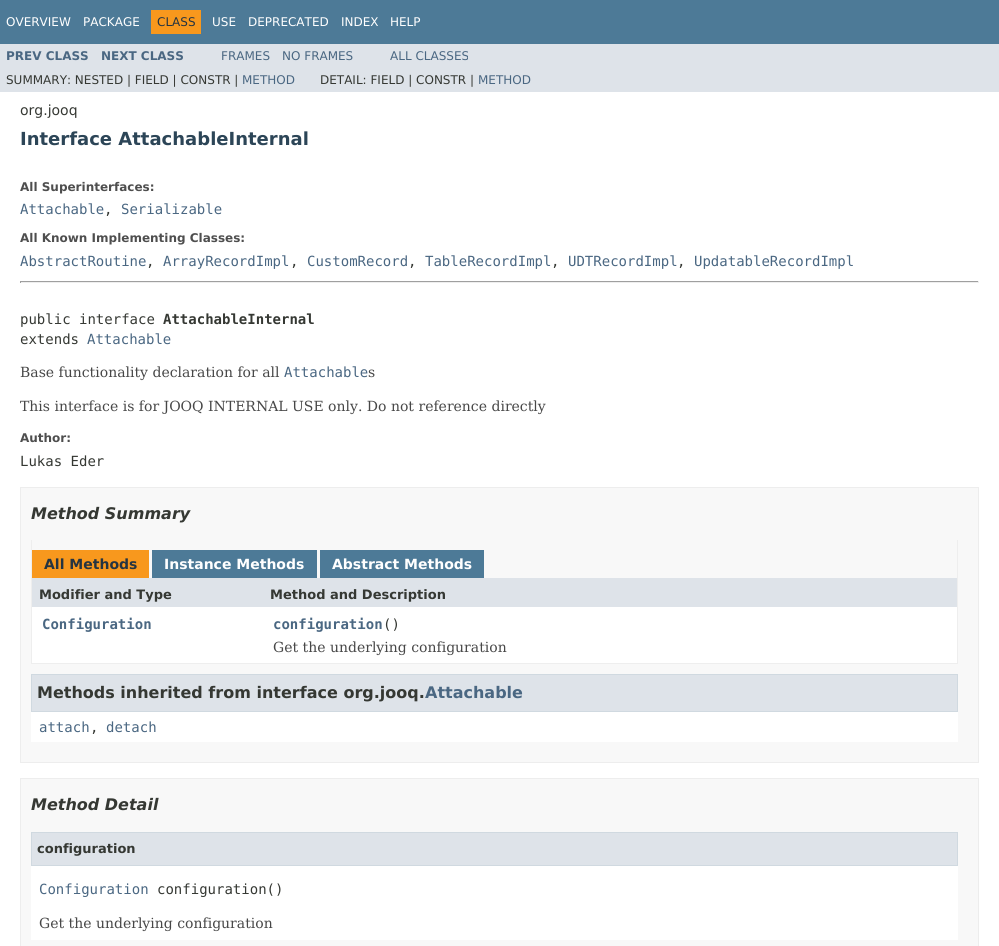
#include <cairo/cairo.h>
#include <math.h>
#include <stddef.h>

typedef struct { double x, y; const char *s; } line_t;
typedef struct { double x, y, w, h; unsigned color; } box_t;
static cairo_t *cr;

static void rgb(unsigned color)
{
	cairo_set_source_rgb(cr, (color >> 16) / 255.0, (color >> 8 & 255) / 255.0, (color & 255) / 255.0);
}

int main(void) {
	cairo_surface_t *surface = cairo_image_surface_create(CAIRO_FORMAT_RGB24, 999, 946);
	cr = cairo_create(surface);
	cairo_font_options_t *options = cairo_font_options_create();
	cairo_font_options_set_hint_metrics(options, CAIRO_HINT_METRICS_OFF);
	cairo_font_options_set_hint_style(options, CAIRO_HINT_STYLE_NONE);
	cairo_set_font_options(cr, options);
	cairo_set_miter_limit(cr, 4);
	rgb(0xffffff);
	cairo_paint(cr);
	{
		static const box_t items[] = {
			{0, 0, 999, 44, 0x4d7a97},
			{151, 10, 50, 24, 0xf8981d},
			{0, 44, 999, 48, 0xdee3e9},
			{20, 281, 959, 1, 0x9f9f9f},
			{978, 281, 1, 2, 0xeeeeee},
			{20, 282, 959, 1, 0xeeeeee},
			{20, 281, 1, 2, 0x9f9f9f},
		};
		for (size_t i = 0; i < sizeof items / sizeof *items; i++) {
			rgb(items[i].color);
			cairo_rectangle(cr, items[i].x, items[i].y, items[i].w, items[i].h);
			cairo_fill(cr);
		}
	}
	rgb(0xf8f8f8);
	cairo_rectangle(cr, 20.5, 487.5, 958, 275);
	cairo_fill_preserve(cr);
	rgb(0xededed);
	cairo_set_line_width(cr, 1);
	cairo_stroke(cr);
	{
		static const box_t items[] = {
			{957, 540, 1, 124, 0xeeeeee},
			{31, 663, 927, 1, 0xeeeeee},
			{31, 540, 1, 124, 0xeeeeee},
			{32, 550, 117, 28, 0xf8981d},
			{152, 550, 165, 28, 0x4d7a97},
			{320, 550, 164, 28, 0x4d7a97},
			{32, 578, 925, 29, 0xdee3e9},
			{32, 607, 925, 56, 0xffffff},
			{31, 712, 927, 30, 0xffffff},
		};
		for (size_t i = 0; i < sizeof items / sizeof *items; i++) {
			rgb(items[i].color);
			cairo_rectangle(cr, items[i].x, items[i].y, items[i].w, items[i].h);
			cairo_fill(cr);
		}
	}
	rgb(0xdee3e9);
	cairo_rectangle(cr, 31.5, 674.5, 926, 37);
	cairo_fill_preserve(cr);
	rgb(0xd0d9e0);
	cairo_stroke(cr);
	rgb(0xf8f8f8);
	cairo_rectangle(cr, 20.5, 778.5, 958, 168);
	cairo_fill_preserve(cr);
	rgb(0xededed);
	cairo_stroke(cr);
	rgb(0xffffff);
	cairo_rectangle(cr, 31, 866, 927, 74);
	cairo_fill(cr);
	rgb(0xdee3e9);
	cairo_rectangle(cr, 31.5, 832.5, 926, 33);
	cairo_fill_preserve(cr);
	rgb(0xd0d9e0);
	cairo_stroke(cr);
	cairo_select_font_face(cr, "DejaVu Sans", CAIRO_FONT_SLANT_NORMAL, CAIRO_FONT_WEIGHT_NORMAL);
	cairo_set_font_size(cr, 12);
	rgb(0xffffff);
	cairo_move_to(cr, 6, 26);
	cairo_show_text(cr, "OVERVIEW");
	cairo_move_to(cr, 83, 26);
	cairo_show_text(cr, "PACKAGE");
	rgb(0x253441);
	cairo_move_to(cr, 157, 26);
	cairo_show_text(cr, "CLASS");
	rgb(0xffffff);
	{
		static const line_t items[] = {
			{212, 26, "USE"},
			{248, 26, "DEPRECATED"},
			{341, 26, "INDEX"},
			{390, 26, "HELP"},
		};
		for (size_t i = 0; i < sizeof items / sizeof *items; i++) {
			cairo_move_to(cr, items[i].x, items[i].y);
			cairo_show_text(cr, items[i].s);
		}
	}
	cairo_select_font_face(cr, "DejaVu Sans", CAIRO_FONT_SLANT_NORMAL, CAIRO_FONT_WEIGHT_BOLD);
	rgb(0x4a6782);
	cairo_move_to(cr, 6, 60);
	cairo_show_text(cr, "PREV CLASS");
	cairo_move_to(cr, 101, 60);
	cairo_show_text(cr, "NEXT CLASS");
	cairo_select_font_face(cr, "DejaVu Sans", CAIRO_FONT_SLANT_NORMAL, CAIRO_FONT_WEIGHT_NORMAL);
	{
		static const line_t items[] = {
			{221, 60, "FRAMES"},
			{282, 60, "NO FRAMES"},
			{390, 60, "ALL CLASSES"},
		};
		for (size_t i = 0; i < sizeof items / sizeof *items; i++) {
			cairo_move_to(cr, items[i].x, items[i].y);
			cairo_show_text(cr, items[i].s);
		}
	}
	rgb(0x353833);
	cairo_move_to(cr, 6, 84);
	cairo_show_text(cr, "SUMMARY: NESTED | FIELD | CONSTR |");
	rgb(0x4a6782);
	cairo_move_to(cr, 242, 84);
	cairo_show_text(cr, "METHOD");
	rgb(0x353833);
	cairo_move_to(cr, 320, 84);
	cairo_show_text(cr, "DETAIL: FIELD | CONSTR |");
	rgb(0x4a6782);
	cairo_move_to(cr, 478, 84);
	cairo_show_text(cr, "METHOD");
	cairo_set_font_size(cr, 14);
	rgb(0x353833);
	cairo_move_to(cr, 20, 115);
	cairo_show_text(cr, "org.jooq");
	cairo_select_font_face(cr, "DejaVu Sans", CAIRO_FONT_SLANT_NORMAL, CAIRO_FONT_WEIGHT_BOLD);
	cairo_set_font_size(cr, 18);
	rgb(0x2c4557);
	cairo_move_to(cr, 20, 145);
	cairo_show_text(cr, "Interface AttachableInternal");
	cairo_set_font_size(cr, 12);
	rgb(0x4e4e4e);
	cairo_move_to(cr, 20, 191);
	cairo_show_text(cr, "All Superinterfaces:");
	cairo_select_font_face(cr, "DejaVu Sans Mono", CAIRO_FONT_SLANT_NORMAL, CAIRO_FONT_WEIGHT_NORMAL);
	cairo_set_font_size(cr, 14);
	rgb(0x4a6782);
	cairo_move_to(cr, 20, 214);
	cairo_show_text(cr, "Attachable");
	rgb(0x353833);
	cairo_move_to(cr, 104, 214);
	cairo_show_text(cr, ",");
	rgb(0x4a6782);
	cairo_move_to(cr, 121, 214);
	cairo_show_text(cr, "Serializable");
	cairo_select_font_face(cr, "DejaVu Sans", CAIRO_FONT_SLANT_NORMAL, CAIRO_FONT_WEIGHT_BOLD);
	cairo_set_font_size(cr, 12);
	rgb(0x4e4e4e);
	cairo_move_to(cr, 20, 242);
	cairo_show_text(cr, "All Known Implementing Classes:");
	cairo_select_font_face(cr, "DejaVu Sans Mono", CAIRO_FONT_SLANT_NORMAL, CAIRO_FONT_WEIGHT_NORMAL);
	cairo_set_font_size(cr, 14);
	rgb(0x4a6782);
	cairo_move_to(cr, 20, 266);
	cairo_show_text(cr, "AbstractRoutine");
	rgb(0x353833);
	cairo_move_to(cr, 146, 266);
	cairo_show_text(cr, ",");
	rgb(0x4a6782);
	cairo_move_to(cr, 163, 266);
	cairo_show_text(cr, "ArrayRecordImpl");
	rgb(0x353833);
	cairo_move_to(cr, 290, 266);
	cairo_show_text(cr, ",");
	rgb(0x4a6782);
	cairo_move_to(cr, 307, 266);
	cairo_show_text(cr, "CustomRecord");
	rgb(0x353833);
	cairo_move_to(cr, 408, 266);
	cairo_show_text(cr, ",");
	rgb(0x4a6782);
	cairo_move_to(cr, 425, 266);
	cairo_show_text(cr, "TableRecordImpl");
	rgb(0x353833);
	cairo_move_to(cr, 551, 266);
	cairo_show_text(cr, ",");
	rgb(0x4a6782);
	cairo_move_to(cr, 568, 266);
	cairo_show_text(cr, "UDTRecordImpl");
	rgb(0x353833);
	cairo_move_to(cr, 677, 266);
	cairo_show_text(cr, ",");
	rgb(0x4a6782);
	cairo_move_to(cr, 694, 266);
	cairo_show_text(cr, "UpdatableRecordImpl");
	rgb(0x353833);
	cairo_move_to(cr, 20, 324);
	cairo_show_text(cr, "public interface");
	cairo_select_font_face(cr, "DejaVu Sans Mono", CAIRO_FONT_SLANT_NORMAL, CAIRO_FONT_WEIGHT_BOLD);
	cairo_move_to(cr, 163, 324);
	cairo_show_text(cr, "AttachableInternal");
	cairo_select_font_face(cr, "DejaVu Sans Mono", CAIRO_FONT_SLANT_NORMAL, CAIRO_FONT_WEIGHT_NORMAL);
	cairo_move_to(cr, 20, 344);
	cairo_show_text(cr, "extends");
	rgb(0x4a6782);
	cairo_move_to(cr, 87, 344);
	cairo_show_text(cr, "Attachable");
	cairo_select_font_face(cr, "DejaVu Serif", CAIRO_FONT_SLANT_NORMAL, CAIRO_FONT_WEIGHT_NORMAL);
	rgb(0x474747);
	cairo_move_to(cr, 20, 377);
	cairo_show_text(cr, "Base functionality declaration for all");
	cairo_select_font_face(cr, "DejaVu Sans Mono", CAIRO_FONT_SLANT_NORMAL, CAIRO_FONT_WEIGHT_NORMAL);
	rgb(0x4a6782);
	cairo_move_to(cr, 284, 377);
	cairo_show_text(cr, "Attachable");
	cairo_select_font_face(cr, "DejaVu Serif", CAIRO_FONT_SLANT_NORMAL, CAIRO_FONT_WEIGHT_NORMAL);
	rgb(0x474747);
	cairo_move_to(cr, 368, 377);
	cairo_show_text(cr, "s");
	cairo_move_to(cr, 20, 411);
	cairo_show_text(cr, "This interface is for JOOQ INTERNAL USE only. Do not reference directly");
	cairo_select_font_face(cr, "DejaVu Sans", CAIRO_FONT_SLANT_NORMAL, CAIRO_FONT_WEIGHT_BOLD);
	cairo_set_font_size(cr, 12);
	rgb(0x4e4e4e);
	cairo_move_to(cr, 20, 442);
	cairo_show_text(cr, "Author:");
	cairo_select_font_face(cr, "DejaVu Sans Mono", CAIRO_FONT_SLANT_NORMAL, CAIRO_FONT_WEIGHT_NORMAL);
	cairo_set_font_size(cr, 14);
	rgb(0x353833);
	cairo_move_to(cr, 20, 466);
	cairo_show_text(cr, "Lukas Eder");
	cairo_select_font_face(cr, "DejaVu Sans", CAIRO_FONT_SLANT_ITALIC, CAIRO_FONT_WEIGHT_BOLD);
	cairo_set_font_size(cr, 16);
	cairo_move_to(cr, 31, 519);
	cairo_show_text(cr, "Method Summary");
	cairo_select_font_face(cr, "DejaVu Sans", CAIRO_FONT_SLANT_NORMAL, CAIRO_FONT_WEIGHT_BOLD);
	cairo_set_font_size(cr, 14);
	rgb(0x253441);
	cairo_move_to(cr, 44, 569);
	cairo_show_text(cr, "All Methods");
	rgb(0xffffff);
	cairo_move_to(cr, 164, 569);
	cairo_show_text(cr, "Instance Methods");
	cairo_move_to(cr, 332, 569);
	cairo_show_text(cr, "Abstract Methods");
	cairo_set_font_size(cr, 13);
	rgb(0x353833);
	cairo_move_to(cr, 39, 599);
	cairo_show_text(cr, "Modifier and Type");
	cairo_move_to(cr, 270, 599);
	cairo_show_text(cr, "Method and Description");
	cairo_select_font_face(cr, "DejaVu Sans Mono", CAIRO_FONT_SLANT_NORMAL, CAIRO_FONT_WEIGHT_BOLD);
	cairo_set_font_size(cr, 14);
	rgb(0x4a6782);
	cairo_move_to(cr, 42, 629);
	cairo_show_text(cr, "Configuration");
	cairo_move_to(cr, 273, 629);
	cairo_show_text(cr, "configuration");
	cairo_select_font_face(cr, "DejaVu Sans Mono", CAIRO_FONT_SLANT_NORMAL, CAIRO_FONT_WEIGHT_NORMAL);
	rgb(0x353833);
	cairo_move_to(cr, 383, 629);
	cairo_show_text(cr, "()");
	cairo_select_font_face(cr, "DejaVu Serif", CAIRO_FONT_SLANT_NORMAL, CAIRO_FONT_WEIGHT_NORMAL);
	rgb(0x474747);
	cairo_move_to(cr, 273, 652);
	cairo_show_text(cr, "Get the underlying configuration");
	cairo_select_font_face(cr, "DejaVu Sans", CAIRO_FONT_SLANT_NORMAL, CAIRO_FONT_WEIGHT_BOLD);
	cairo_set_font_size(cr, 16);
	rgb(0x353833);
	cairo_move_to(cr, 37, 698);
	cairo_show_text(cr, "Methods inherited from interface org.jooq.");
	rgb(0x4a6782);
	cairo_move_to(cr, 425, 698);
	cairo_show_text(cr, "Attachable");
	cairo_select_font_face(cr, "DejaVu Sans Mono", CAIRO_FONT_SLANT_NORMAL, CAIRO_FONT_WEIGHT_NORMAL);
	cairo_set_font_size(cr, 14);
	cairo_move_to(cr, 39, 732);
	cairo_show_text(cr, "attach");
	rgb(0x353833);
	cairo_move_to(cr, 90, 732);
	cairo_show_text(cr, ",");
	rgb(0x4a6782);
	cairo_move_to(cr, 106, 732);
	cairo_show_text(cr, "detach");
	cairo_select_font_face(cr, "DejaVu Sans", CAIRO_FONT_SLANT_ITALIC, CAIRO_FONT_WEIGHT_BOLD);
	cairo_set_font_size(cr, 16);
	rgb(0x353833);
	cairo_move_to(cr, 31, 810);
	cairo_show_text(cr, "Method Detail");
	cairo_select_font_face(cr, "DejaVu Sans", CAIRO_FONT_SLANT_NORMAL, CAIRO_FONT_WEIGHT_BOLD);
	cairo_set_font_size(cr, 13);
	cairo_move_to(cr, 37, 853);
	cairo_show_text(cr, "configuration");
	cairo_select_font_face(cr, "DejaVu Sans Mono", CAIRO_FONT_SLANT_NORMAL, CAIRO_FONT_WEIGHT_NORMAL);
	cairo_set_font_size(cr, 14);
	rgb(0x4a6782);
	cairo_move_to(cr, 39, 894);
	cairo_show_text(cr, "Configuration");
	rgb(0x353833);
	cairo_move_to(cr, 157, 894);
	cairo_show_text(cr, "configuration()");
	cairo_select_font_face(cr, "DejaVu Serif", CAIRO_FONT_SLANT_NORMAL, CAIRO_FONT_WEIGHT_NORMAL);
	rgb(0x474747);
	cairo_move_to(cr, 39, 928);
	cairo_show_text(cr, "Get the underlying configuration");
	cairo_surface_write_to_png(surface, "page.png");
	cairo_font_options_destroy(options);
	cairo_destroy(cr);
	cairo_surface_destroy(surface);
	return 0;
}
